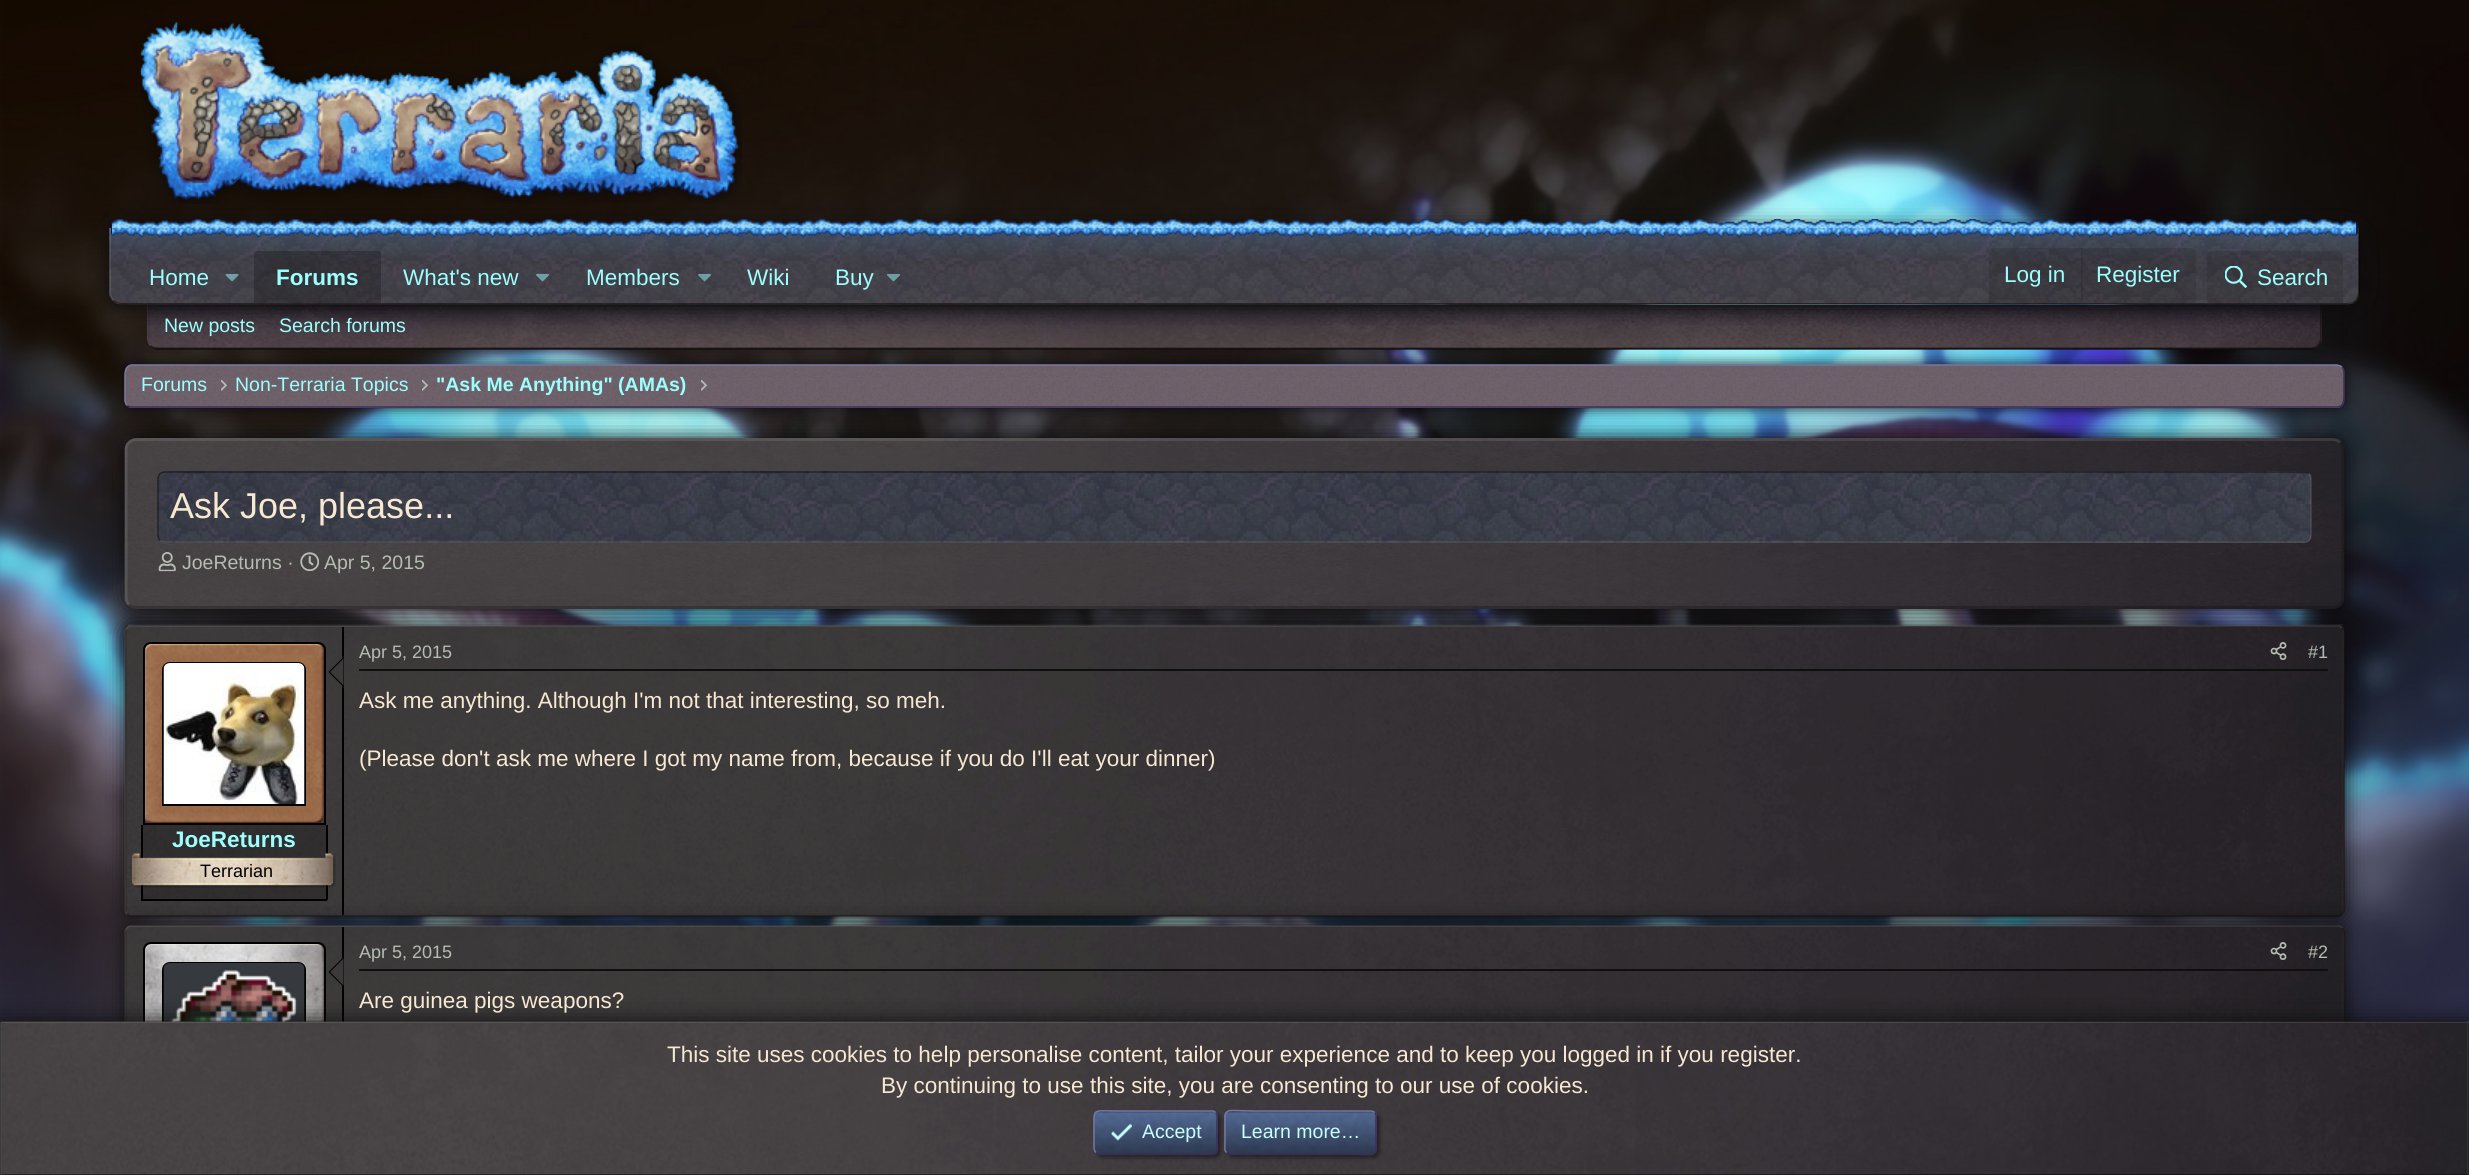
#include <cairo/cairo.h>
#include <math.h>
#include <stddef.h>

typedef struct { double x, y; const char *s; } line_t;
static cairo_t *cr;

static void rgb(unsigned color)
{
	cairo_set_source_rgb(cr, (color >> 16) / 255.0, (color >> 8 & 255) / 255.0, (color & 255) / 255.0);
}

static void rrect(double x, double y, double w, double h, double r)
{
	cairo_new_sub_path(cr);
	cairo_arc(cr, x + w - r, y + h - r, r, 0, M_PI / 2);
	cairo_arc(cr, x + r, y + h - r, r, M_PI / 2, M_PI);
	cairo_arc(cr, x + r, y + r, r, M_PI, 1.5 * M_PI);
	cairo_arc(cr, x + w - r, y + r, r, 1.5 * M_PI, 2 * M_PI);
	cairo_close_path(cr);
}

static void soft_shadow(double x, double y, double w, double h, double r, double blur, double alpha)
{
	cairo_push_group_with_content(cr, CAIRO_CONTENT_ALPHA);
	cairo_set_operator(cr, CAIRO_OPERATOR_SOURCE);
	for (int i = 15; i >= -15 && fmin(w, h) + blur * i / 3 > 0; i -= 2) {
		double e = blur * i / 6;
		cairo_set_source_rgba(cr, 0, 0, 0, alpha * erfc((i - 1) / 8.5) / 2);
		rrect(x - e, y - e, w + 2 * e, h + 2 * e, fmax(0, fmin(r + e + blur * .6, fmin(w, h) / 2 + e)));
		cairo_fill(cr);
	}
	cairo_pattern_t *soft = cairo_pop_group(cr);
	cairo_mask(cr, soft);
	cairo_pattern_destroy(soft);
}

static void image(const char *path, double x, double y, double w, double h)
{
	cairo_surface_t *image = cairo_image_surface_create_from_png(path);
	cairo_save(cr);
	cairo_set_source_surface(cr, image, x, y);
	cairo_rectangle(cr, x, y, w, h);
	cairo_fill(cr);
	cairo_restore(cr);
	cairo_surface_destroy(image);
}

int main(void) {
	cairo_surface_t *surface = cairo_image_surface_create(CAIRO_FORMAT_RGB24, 2469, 1175);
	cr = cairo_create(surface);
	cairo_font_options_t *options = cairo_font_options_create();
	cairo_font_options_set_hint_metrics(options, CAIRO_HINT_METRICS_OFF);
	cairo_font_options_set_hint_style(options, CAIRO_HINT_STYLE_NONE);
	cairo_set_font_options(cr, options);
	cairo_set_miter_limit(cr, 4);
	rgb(0xffffff);
	cairo_paint(cr);
	image("img/1.png", 0, 0, 2469, 1022);
	image("img/2.png", 140, 21, 602, 183);
	rgb(0x0a0a0a);
	soft_shadow(125, 365, 2220, 43, 8, 7.5, 1);
	image("img/11.png", 147, 304, 2175, 46);
	cairo_set_source_rgba(cr, 0.051, 0.016, 0.008, 0.5);
	cairo_new_path(cr);
	cairo_move_to(cr, 2322, 304);
	cairo_line_to(cr, 2320, 304);
	cairo_line_to(cr, 2320, 338);
	cairo_curve_to(cr, 2320, 340, 2319, 343, 2317, 345);
	cairo_line_to(cr, 2319, 346);
	cairo_curve_to(cr, 2321, 344, 2322, 341, 2322, 338);
	cairo_close_path(cr);
	cairo_fill(cr);
	cairo_new_path(cr);
	cairo_move_to(cr, 156, 350);
	cairo_curve_to(cr, 154, 349, 152, 348, 150, 346);
	cairo_line_to(cr, 151, 345);
	cairo_curve_to(cr, 153, 347, 156, 348, 159, 348);
	cairo_line_to(cr, 2310, 348);
	cairo_curve_to(cr, 2313, 348, 2316, 347, 2317, 345);
	cairo_line_to(cr, 2319, 346);
	cairo_curve_to(cr, 2317, 348, 2315, 349, 2313, 350);
	cairo_close_path(cr);
	cairo_fill(cr);
	cairo_set_source_rgba(cr, 1, 1, 1, 0.1);
	cairo_new_path(cr);
	cairo_move_to(cr, 147, 304);
	cairo_line_to(cr, 147, 338);
	cairo_curve_to(cr, 147, 341, 148, 344, 150, 346);
	cairo_line_to(cr, 151, 345);
	cairo_curve_to(cr, 149, 343, 148, 341, 148, 338);
	cairo_line_to(cr, 148, 304);
	cairo_close_path(cr);
	cairo_fill(cr);
	rgb(0x0a0a0a);
	soft_shadow(110, 228, 2250, 77, 12, 11, 1);
	image("img/3.png", 109, 228, 2250, 77);
	cairo_set_source_rgba(cr, 0.051, 0.016, 0.008, 0.5);
	cairo_new_path(cr);
	cairo_move_to(cr, 2360, 228);
	cairo_line_to(cr, 2360, 295);
	cairo_curve_to(cr, 2359, 298, 2358, 299, 2356, 301);
	cairo_line_to(cr, 2355, 300);
	cairo_curve_to(cr, 2357, 298, 2358, 295, 2358, 292);
	cairo_line_to(cr, 2358, 228);
	cairo_close_path(cr);
	cairo_fill(cr);
	cairo_new_path(cr);
	cairo_move_to(cr, 2356, 301);
	cairo_curve_to(cr, 2354, 303, 2351, 304, 2348, 304);
	cairo_line_to(cr, 122, 304);
	cairo_curve_to(cr, 118, 304, 116, 303, 113, 301);
	cairo_line_to(cr, 114, 300);
	cairo_curve_to(cr, 116, 302, 119, 303, 122, 303);
	cairo_line_to(cr, 2348, 303);
	cairo_curve_to(cr, 2350, 303, 2353, 302, 2355, 300);
	cairo_close_path(cr);
	cairo_fill(cr);
	cairo_set_source_rgba(cr, 1, 1, 1, 0.1);
	cairo_new_path(cr);
	cairo_move_to(cr, 110, 228);
	cairo_line_to(cr, 111, 228);
	cairo_line_to(cr, 111, 292);
	cairo_curve_to(cr, 111, 295, 112, 298, 114, 300);
	cairo_line_to(cr, 113, 301);
	cairo_curve_to(cr, 111, 298, 110, 296, 110, 292);
	cairo_close_path(cr);
	cairo_fill(cr);
	image("img/4.png", 111, 219, 2247, 19);
	image("img/5.png", 112, 219, 2244, 19);
	image("img/6.png", 225, 273, 14, 9);
	cairo_set_source_rgba(cr, 0.078, 0.078, 0.078, 0.3);
	cairo_new_path(cr);
	cairo_move_to(cr, 257, 251);
	cairo_line_to(cr, 378, 251);
	cairo_curve_to(cr, 379.5, 251, 381, 252.5, 381, 254);
	cairo_line_to(cr, 381, 303);
	cairo_line_to(cr, 254, 303);
	cairo_line_to(cr, 254, 254);
	cairo_curve_to(cr, 254, 252.5, 255.5, 251, 257, 251);
	cairo_close_path(cr);
	cairo_fill(cr);
	image("img/7.png", 536, 273, 13, 9);
	image("img/8.png", 698, 273, 13, 9);
	image("img/9.png", 887, 273, 13, 9);
	cairo_set_source_rgba(cr, 0.078, 0.078, 0.078, 0.15);
	cairo_new_path(cr);
	cairo_move_to(cr, 1995, 248);
	cairo_line_to(cr, 2190, 248);
	cairo_curve_to(cr, 2193.5, 248, 2196, 250.5, 2196, 254);
	cairo_line_to(cr, 2196, 303);
	cairo_line_to(cr, 1989, 303);
	cairo_line_to(cr, 1989, 254);
	cairo_curve_to(cr, 1989, 250.5, 1991.5, 248, 1995, 248);
	cairo_close_path(cr);
	cairo_fill(cr);
	cairo_rectangle(cr, 2081, 248, 2, 52);
	cairo_fill(cr);
	cairo_new_path(cr);
	cairo_move_to(cr, 2213, 251);
	cairo_line_to(cr, 2337, 251);
	cairo_curve_to(cr, 2340.5, 251, 2343, 253.5, 2343, 257);
	cairo_line_to(cr, 2343, 303);
	cairo_line_to(cr, 2207, 303);
	cairo_line_to(cr, 2207, 257);
	cairo_curve_to(cr, 2207, 253.5, 2209.5, 251, 2213, 251);
	cairo_close_path(cr);
	cairo_fill(cr);
	image("img/10.png", 2225, 266, 22, 22);
	image("img/12.png", 124, 364, 2221, 44);
	cairo_new_path(cr);
	cairo_move_to(cr, 2342, 367);
	cairo_curve_to(cr, 2344.5, 370, 2344, 373.5, 2344, 377);
	cairo_line_to(cr, 2344, 396);
	cairo_curve_to(cr, 2344, 400.5, 2343.5, 407, 2337, 407);
	cairo_line_to(cr, 132, 407);
	cairo_curve_to(cr, 130, 407, 128.5, 406.5, 127, 405.5);
	rgb(0x3f2c5c);
	cairo_set_line_width(cr, 1.5);
	cairo_stroke(cr);
	cairo_new_path(cr);
	cairo_move_to(cr, 127, 405.5);
	cairo_curve_to(cr, 124.5, 402.5, 125, 399, 125, 396);
	cairo_line_to(cr, 125, 377);
	cairo_curve_to(cr, 125, 372, 125.5, 365.5, 132, 365);
	cairo_line_to(cr, 2337, 365);
	cairo_curve_to(cr, 2339, 365.5, 2340.5, 366, 2342, 367);
	rgb(0x7876a2);
	cairo_stroke(cr);
	image("img/13.png", 221, 379, 6, 12);
	image("img/14.png", 422, 379, 6, 12);
	image("img/15.png", 701, 379, 6, 12);
	rgb(0x0a0a0a);
	soft_shadow(125, 438, 2220, 171, 12, 11, 1);
	image("img/16.png", 124, 438, 2221, 171);
	cairo_new_path(cr);
	cairo_move_to(cr, 2340, 442.5);
	cairo_curve_to(cr, 2342, 444.5, 2343, 447, 2343, 450);
	cairo_line_to(cr, 2343, 597);
	cairo_curve_to(cr, 2343, 600, 2342, 602.5, 2340, 604.5);
	cairo_curve_to(cr, 2338, 606.5, 2335.5, 607.5, 2332.5, 607.5);
	cairo_line_to(cr, 136.5, 607.5);
	cairo_curve_to(cr, 133.5, 607.5, 131, 606.5, 129, 604.5);
	cairo_set_source_rgba(cr, 0.051, 0.016, 0.008, 0.2);
	cairo_set_line_width(cr, 3);
	cairo_stroke(cr);
	cairo_new_path(cr);
	cairo_move_to(cr, 129, 604.5);
	cairo_curve_to(cr, 127, 602.5, 126, 600, 126, 597);
	cairo_line_to(cr, 126, 450);
	cairo_curve_to(cr, 126, 447, 127, 444.5, 129, 442.5);
	cairo_curve_to(cr, 131, 440.5, 133.5, 439.5, 136.5, 439.5);
	cairo_line_to(cr, 2332.5, 439.5);
	cairo_curve_to(cr, 2335.5, 439.5, 2338, 440.5, 2340, 442.5);
	cairo_set_source_rgba(cr, 1, 1, 1, 0.1);
	cairo_stroke(cr);
	image("img/17.png", 157, 471, 2155, 72);
	cairo_new_path(cr);
	cairo_move_to(cr, 2309, 473.5);
	cairo_curve_to(cr, 2310, 475, 2311, 476.5, 2311, 478.5);
	cairo_line_to(cr, 2311, 535.5);
	cairo_curve_to(cr, 2311, 537.5, 2310, 539, 2309, 540.5);
	cairo_curve_to(cr, 2307.5, 541.5, 2306, 542, 2304, 542);
	cairo_line_to(cr, 165, 542);
	cairo_curve_to(cr, 163, 542, 161.5, 541.5, 160, 540.5);
	cairo_set_line_width(cr, 1.5);
	cairo_stroke(cr);
	cairo_new_path(cr);
	cairo_move_to(cr, 160, 540.5);
	cairo_curve_to(cr, 159, 539, 158, 537.5, 158, 535.5);
	cairo_line_to(cr, 158, 478.5);
	cairo_curve_to(cr, 158, 476.5, 159, 475, 160, 473.5);
	cairo_curve_to(cr, 161.5, 472.5, 163, 472, 165, 472);
	cairo_line_to(cr, 2304, 472);
	cairo_curve_to(cr, 2306, 472, 2307.5, 472.5, 2309, 473.5);
	cairo_set_source_rgba(cr, 0.051, 0.016, 0.008, 0.5);
	cairo_stroke(cr);
	image("img/18.png", 158, 552, 18, 20);
	image("img/19.png", 300, 552, 20, 20);
	cairo_set_source_rgba(cr, 1, 1, 1, 0.1);
	cairo_rectangle(cr, 128, 624, 2215, 2);
	cairo_fill(cr);
	rgb(0x0a0a0a);
	soft_shadow(125, 626, 2220, 291, 6, 11, 1);
	image("img/20.png", 124, 625, 2221, 292);
	cairo_new_path(cr);
	cairo_move_to(cr, 2342, 628);
	cairo_curve_to(cr, 2343, 629, 2344, 630, 2344, 631.5);
	cairo_line_to(cr, 2344, 910.5);
	cairo_curve_to(cr, 2344, 912, 2343, 913, 2342, 914);
	cairo_curve_to(cr, 2341, 915, 2340, 916, 2338.5, 916);
	cairo_line_to(cr, 130.5, 916);
	cairo_curve_to(cr, 129, 916, 128, 915, 127, 914);
	cairo_set_source_rgba(cr, 0.051, 0.016, 0.008, 0.5);
	cairo_stroke(cr);
	cairo_new_path(cr);
	cairo_move_to(cr, 127, 914);
	cairo_curve_to(cr, 126, 913, 125, 912, 125, 910.5);
	cairo_line_to(cr, 125, 631.5);
	cairo_curve_to(cr, 125, 630, 126, 629, 127, 628);
	cairo_curve_to(cr, 128, 627, 129, 626, 130.5, 626);
	cairo_line_to(cr, 2338.5, 626);
	cairo_curve_to(cr, 2340, 626, 2341, 627, 2342, 628);
	cairo_set_source_rgba(cr, 1, 1, 1, 0.1);
	cairo_stroke(cr);
	rgb(0x0f0f0f);
	cairo_rectangle(cr, 359, 669, 1969, 2);
	cairo_fill(cr);
	image("img/21.png", 2270, 642, 17, 18);
	rgb(0x0a0a0a);
	soft_shadow(125, 926, 2220, 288, 6, 11, 1);
	rgb(0x000000);
	cairo_rectangle(cr, 342, 627, 2, 288);
	cairo_fill(cr);
	image("img/22.png", 144, 644, 180, 179);
	cairo_new_path(cr);
	cairo_move_to(cr, 151, 643);
	cairo_line_to(cr, 318, 643);
	cairo_curve_to(cr, 322, 643, 325, 646, 325, 650);
	cairo_line_to(cr, 325, 824);
	cairo_line_to(cr, 144, 824);
	cairo_line_to(cr, 144, 650);
	cairo_curve_to(cr, 144, 646, 147, 643, 151, 643);
	cairo_close_path(cr);
	cairo_set_line_width(cr, 2);
	cairo_stroke(cr);
	cairo_new_path(cr);
	cairo_move_to(cr, 170, 663);
	cairo_line_to(cr, 298, 663);
	cairo_curve_to(cr, 302, 663, 305, 666, 305, 670);
	cairo_line_to(cr, 305, 805);
	cairo_line_to(cr, 163, 805);
	cairo_line_to(cr, 163, 670);
	cairo_curve_to(cr, 163, 666, 166, 663, 170, 663);
	cairo_close_path(cr);
	cairo_stroke(cr);
	image("img/23.png", 163, 663, 142, 141);
	cairo_new_path(cr);
	cairo_move_to(cr, 343.5, 657);
	cairo_line_to(cr, 343.5, 687);
	cairo_line_to(cr, 328.5, 672);
	cairo_close_path(cr);
	cairo_fill(cr);
	rgb(0x3c393a);
	cairo_new_path(cr);
	cairo_move_to(cr, 343.5, 658.5);
	cairo_line_to(cr, 343.5, 685.5);
	cairo_line_to(cr, 330, 672);
	cairo_close_path(cr);
	cairo_fill(cr);
	cairo_set_source_rgba(cr, 0.078, 0.078, 0.078, 0.3);
	cairo_rectangle(cr, 143, 825, 183, 74);
	cairo_fill(cr);
	rgb(0x000000);
	cairo_rectangle(cr, 326, 825, 2, 75);
	cairo_fill(cr);
	cairo_rectangle(cr, 141, 899, 186, 2);
	cairo_fill(cr);
	cairo_rectangle(cr, 141, 825, 2, 75);
	cairo_fill(cr);
	image("img/24.png", 132, 853, 204, 35);
	image("img/25.png", 124, 925, 2221, 97);
	cairo_new_path(cr);
	cairo_move_to(cr, 2342, 928);
	cairo_curve_to(cr, 2343, 929, 2344, 930, 2344, 931.5);
	cairo_line_to(cr, 2344, 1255.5);
	cairo_curve_to(cr, 2344, 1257, 2343, 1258, 2342, 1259);
	cairo_curve_to(cr, 2341, 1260, 2340, 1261, 2338.5, 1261);
	cairo_line_to(cr, 130.5, 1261);
	cairo_curve_to(cr, 129, 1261, 128, 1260, 127, 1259);
	cairo_set_source_rgba(cr, 0.051, 0.016, 0.008, 0.5);
	cairo_set_line_width(cr, 1.5);
	cairo_stroke(cr);
	cairo_new_path(cr);
	cairo_move_to(cr, 127, 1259);
	cairo_curve_to(cr, 126, 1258, 125, 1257, 125, 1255.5);
	cairo_line_to(cr, 125, 931.5);
	cairo_curve_to(cr, 125, 930, 126, 929, 127, 928);
	cairo_curve_to(cr, 128, 927, 129, 926, 130.5, 926);
	cairo_line_to(cr, 2338.5, 926);
	cairo_curve_to(cr, 2340, 926, 2341, 927, 2342, 928);
	cairo_set_source_rgba(cr, 1, 1, 1, 0.1);
	cairo_stroke(cr);
	rgb(0x000000);
	cairo_rectangle(cr, 342, 927, 2, 95);
	cairo_fill(cr);
	image("img/26.png", 144, 944, 180, 78);
	cairo_new_path(cr);
	cairo_move_to(cr, 151, 943);
	cairo_line_to(cr, 318, 943);
	cairo_curve_to(cr, 322, 943, 325, 946, 325, 950);
	cairo_line_to(cr, 325, 1124);
	cairo_line_to(cr, 144, 1124);
	cairo_line_to(cr, 144, 950);
	cairo_curve_to(cr, 144, 946, 147, 943, 151, 943);
	cairo_close_path(cr);
	cairo_set_line_width(cr, 2);
	cairo_stroke(cr);
	cairo_new_path(cr);
	cairo_move_to(cr, 170, 963);
	cairo_line_to(cr, 298, 963);
	cairo_curve_to(cr, 302, 963, 305, 966, 305, 970);
	cairo_line_to(cr, 305, 1105);
	cairo_line_to(cr, 163, 1105);
	cairo_line_to(cr, 163, 970);
	cairo_curve_to(cr, 163, 966, 166, 963, 170, 963);
	cairo_close_path(cr);
	cairo_stroke(cr);
	image("img/27.png", 163, 963, 142, 59);
	cairo_new_path(cr);
	cairo_move_to(cr, 343.5, 957);
	cairo_line_to(cr, 343.5, 987);
	cairo_line_to(cr, 328.5, 972);
	cairo_close_path(cr);
	cairo_fill(cr);
	rgb(0x3c393a);
	cairo_new_path(cr);
	cairo_move_to(cr, 343.5, 958.5);
	cairo_line_to(cr, 343.5, 985.5);
	cairo_line_to(cr, 330, 972);
	cairo_close_path(cr);
	cairo_fill(cr);
	rgb(0x0f0f0f);
	cairo_rectangle(cr, 359, 969, 1969, 2);
	cairo_fill(cr);
	image("img/21.png", 2270, 942, 17, 18);
	rgb(0x0a0a0a);
	soft_shadow(0, 1022, 2469, 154, 0, 11, 1);
	image("img/28.png", 0, 1021, 2469, 154);
	cairo_set_source_rgba(cr, 1, 1, 1, 0.1);
	cairo_new_path(cr);
	cairo_move_to(cr, 0, 1022);
	cairo_line_to(cr, 2469, 1022);
	cairo_line_to(cr, 2468, 1023);
	cairo_line_to(cr, 2, 1023);
	cairo_close_path(cr);
	cairo_fill(cr);
	cairo_set_source_rgba(cr, 0.051, 0.016, 0.008, 0.5);
	cairo_new_path(cr);
	cairo_move_to(cr, 2469, 1022);
	cairo_line_to(cr, 2469, 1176);
	cairo_line_to(cr, 2468, 1174);
	cairo_line_to(cr, 2468, 1023);
	cairo_close_path(cr);
	cairo_fill(cr);
	cairo_new_path(cr);
	cairo_move_to(cr, 2469, 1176);
	cairo_line_to(cr, 0, 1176);
	cairo_line_to(cr, 2, 1174);
	cairo_line_to(cr, 2468, 1174);
	cairo_close_path(cr);
	cairo_fill(cr);
	cairo_set_source_rgba(cr, 1, 1, 1, 0.1);
	cairo_new_path(cr);
	cairo_move_to(cr, 0, 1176);
	cairo_line_to(cr, 0, 1022);
	cairo_line_to(cr, 2, 1023);
	cairo_line_to(cr, 2, 1174);
	cairo_close_path(cr);
	cairo_fill(cr);
	rgb(0x0a0a0a);
	soft_shadow(1097, 1113, 124, 45, 6, 2, 0.5);
	image("img/29.png", 1093, 1110, 125, 46);
	cairo_new_path(cr);
	cairo_move_to(cr, 1215.5, 1112.5);
	cairo_curve_to(cr, 1218, 1114.5, 1217, 1118.5, 1217, 1121.5);
	cairo_line_to(cr, 1217, 1132.5);
	cairo_curve_to(cr, 1217, 1158, 1220.5, 1154, 1193, 1154);
	cairo_line_to(cr, 1099.5, 1154);
	cairo_curve_to(cr, 1098, 1154, 1097, 1153.5, 1096, 1152.5);
	rgb(0x3f2c5c);
	cairo_set_line_width(cr, 1.5);
	cairo_stroke(cr);
	cairo_new_path(cr);
	cairo_move_to(cr, 1096, 1152.5);
	cairo_curve_to(cr, 1093.5, 1150.5, 1094, 1146.5, 1094, 1143.5);
	cairo_line_to(cr, 1094, 1132.5);
	cairo_curve_to(cr, 1094, 1107, 1091, 1111, 1118, 1111);
	cairo_line_to(cr, 1212, 1111);
	cairo_curve_to(cr, 1213.5, 1111, 1214.5, 1111.5, 1215.5, 1112.5);
	rgb(0x7876a2);
	cairo_stroke(cr);
	image("img/30.png", 1111, 1123, 21, 18);
	rgb(0x0a0a0a);
	soft_shadow(1227, 1113, 153, 45, 6, 2, 0.5);
	image("img/31.png", 1224, 1110, 153, 46);
	cairo_new_path(cr);
	cairo_move_to(cr, 1374.5, 1112.5);
	cairo_curve_to(cr, 1377, 1114.5, 1376, 1118.5, 1376, 1121.5);
	cairo_line_to(cr, 1376, 1132.5);
	cairo_curve_to(cr, 1376, 1160, 1379, 1154, 1347.5, 1154);
	cairo_line_to(cr, 1230, 1154);
	cairo_curve_to(cr, 1228.5, 1154, 1227.5, 1153.5, 1226.5, 1152.5);
	rgb(0x3f2c5c);
	cairo_stroke(cr);
	cairo_new_path(cr);
	cairo_move_to(cr, 1226.5, 1152.5);
	cairo_curve_to(cr, 1224, 1150.5, 1225, 1146.5, 1225, 1143.5);
	cairo_line_to(cr, 1225, 1132.5);
	cairo_curve_to(cr, 1225, 1105, 1222, 1111, 1253.5, 1111);
	cairo_line_to(cr, 1371, 1111);
	cairo_curve_to(cr, 1372.5, 1111, 1373.5, 1111.5, 1374.5, 1112.5);
	rgb(0x7876a2);
	cairo_stroke(cr);
	cairo_select_font_face(cr, "Liberation Sans", CAIRO_FONT_SLANT_NORMAL, CAIRO_FONT_WEIGHT_NORMAL);
	cairo_set_font_size(cr, 22.5);
	rgb(0x9cfffd);
	cairo_move_to(cr, 149, 285);
	cairo_show_text(cr, "Home");
	cairo_select_font_face(cr, "Liberation Sans", CAIRO_FONT_SLANT_NORMAL, CAIRO_FONT_WEIGHT_BOLD);
	cairo_move_to(cr, 276, 285);
	cairo_show_text(cr, "Forums");
	cairo_select_font_face(cr, "Liberation Sans", CAIRO_FONT_SLANT_NORMAL, CAIRO_FONT_WEIGHT_NORMAL);
	{
		static const line_t items[] = {
			{403, 285, "What's new"},
			{586, 285, "Members"},
			{747, 285, "Wiki"},
			{835, 285, "Buy"},
			{2004, 282, "Log in"},
			{2096, 282, "Register"},
			{2257, 285, "Search"},
		};
		for (size_t i = 0; i < sizeof items / sizeof *items; i++) {
			cairo_move_to(cr, items[i].x, items[i].y);
			cairo_show_text(cr, items[i].s);
		}
	}
	cairo_set_font_size(cr, 19.5);
	{
		static const line_t items[] = {
			{164, 332, "New posts"},
			{279, 332, "Search forums"},
			{141, 391, "Forums"},
			{235, 391, "Non-Terraria Topics"},
		};
		for (size_t i = 0; i < sizeof items / sizeof *items; i++) {
			cairo_move_to(cr, items[i].x, items[i].y);
			cairo_show_text(cr, items[i].s);
		}
	}
	cairo_select_font_face(cr, "Liberation Sans", CAIRO_FONT_SLANT_NORMAL, CAIRO_FONT_WEIGHT_BOLD);
	cairo_move_to(cr, 436, 391);
	cairo_show_text(cr, "\"Ask Me Anything\" (AMAs)");
	cairo_select_font_face(cr, "Liberation Sans", CAIRO_FONT_SLANT_NORMAL, CAIRO_FONT_WEIGHT_NORMAL);
	cairo_set_font_size(cr, 36);
	rgb(0xf7e8d1);
	cairo_move_to(cr, 170, 518);
	cairo_show_text(cr, "Ask Joe, please...");
	cairo_set_font_size(cr, 19.5);
	rgb(0xb5bdb2);
	cairo_move_to(cr, 182, 569);
	cairo_show_text(cr, "JoeReturns ·");
	cairo_move_to(cr, 324, 569);
	cairo_show_text(cr, "Apr 5, 2015");
	cairo_set_font_size(cr, 18);
	cairo_move_to(cr, 359, 658);
	cairo_show_text(cr, "Apr 5, 2015");
	cairo_move_to(cr, 2308, 658);
	cairo_show_text(cr, "#1");
	cairo_set_font_size(cr, 22.5);
	rgb(0xf7e8d1);
	cairo_move_to(cr, 359, 708);
	cairo_show_text(cr, "Ask me anything. Although I'm not that interesting, so meh.");
	cairo_move_to(cr, 359, 766);
	cairo_show_text(cr, "(Please don't ask me where I got my name from, because if you do I'll eat your dinner)");
	cairo_select_font_face(cr, "Liberation Sans", CAIRO_FONT_SLANT_NORMAL, CAIRO_FONT_WEIGHT_BOLD);
	rgb(0x9cfffd);
	cairo_move_to(cr, 172, 847);
	cairo_show_text(cr, "JoeReturns");
	cairo_select_font_face(cr, "Liberation Sans", CAIRO_FONT_SLANT_NORMAL, CAIRO_FONT_WEIGHT_NORMAL);
	cairo_set_font_size(cr, 18);
	rgb(0x000000);
	cairo_move_to(cr, 200, 877);
	cairo_show_text(cr, "Terrarian");
	rgb(0xb5bdb2);
	cairo_move_to(cr, 359, 958);
	cairo_show_text(cr, "Apr 5, 2015");
	cairo_move_to(cr, 2308, 958);
	cairo_show_text(cr, "#2");
	cairo_set_font_size(cr, 22.5);
	rgb(0xf7e8d1);
	{
		static const line_t items[] = {
			{359, 1008, "Are guinea pigs weapons?"},
			{667, 1062, "This site uses cookies to help personalise content, tailor your experience and to keep you logged in if you register."},
			{881, 1093, "By continuing to use this site, you are consenting to our use of cookies."},
		};
		for (size_t i = 0; i < sizeof items / sizeof *items; i++) {
			cairo_move_to(cr, items[i].x, items[i].y);
			cairo_show_text(cr, items[i].s);
		}
	}
	cairo_set_font_size(cr, 19.5);
	rgb(0xc8ffff);
	cairo_move_to(cr, 1142, 1138);
	cairo_show_text(cr, "Accept");
	cairo_move_to(cr, 1241, 1138);
	cairo_show_text(cr, "Learn more…");
	cairo_surface_write_to_png(surface, "page.png");
	cairo_font_options_destroy(options);
	cairo_destroy(cr);
	cairo_surface_destroy(surface);
	return 0;
}
